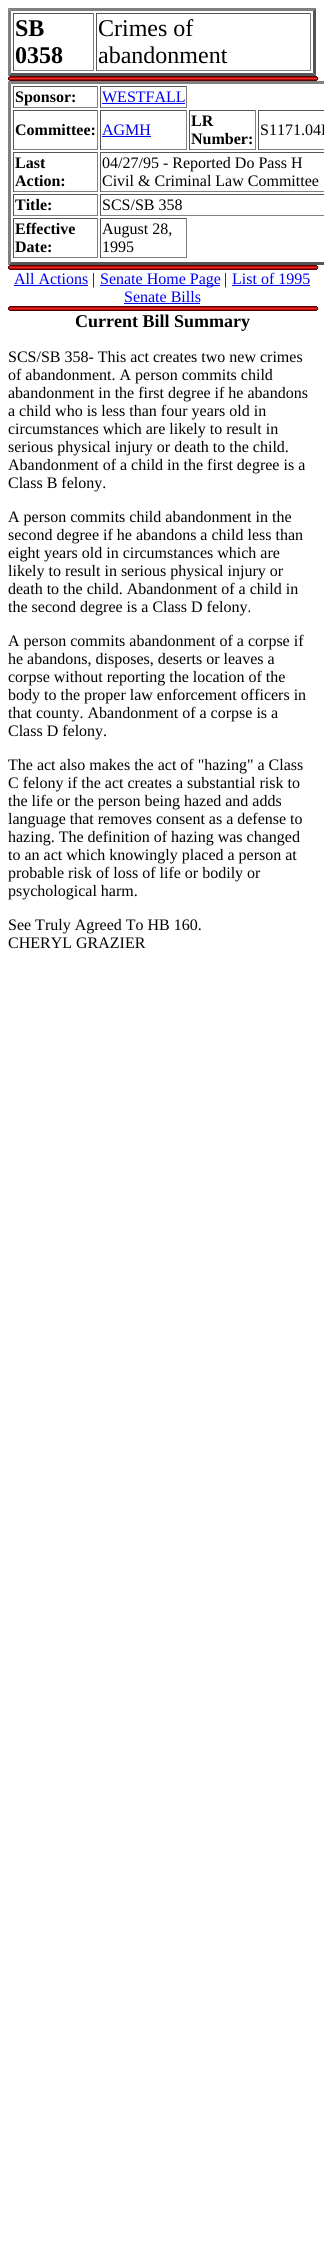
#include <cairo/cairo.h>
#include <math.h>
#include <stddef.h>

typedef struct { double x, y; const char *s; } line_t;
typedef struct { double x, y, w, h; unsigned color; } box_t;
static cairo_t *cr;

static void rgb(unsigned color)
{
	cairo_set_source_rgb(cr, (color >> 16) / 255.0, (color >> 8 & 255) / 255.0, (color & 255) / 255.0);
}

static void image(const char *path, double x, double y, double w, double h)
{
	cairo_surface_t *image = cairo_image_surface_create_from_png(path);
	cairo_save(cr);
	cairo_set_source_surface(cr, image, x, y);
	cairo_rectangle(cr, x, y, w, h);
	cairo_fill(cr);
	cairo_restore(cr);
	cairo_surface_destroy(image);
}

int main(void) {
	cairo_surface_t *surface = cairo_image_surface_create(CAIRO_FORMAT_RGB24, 324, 2266);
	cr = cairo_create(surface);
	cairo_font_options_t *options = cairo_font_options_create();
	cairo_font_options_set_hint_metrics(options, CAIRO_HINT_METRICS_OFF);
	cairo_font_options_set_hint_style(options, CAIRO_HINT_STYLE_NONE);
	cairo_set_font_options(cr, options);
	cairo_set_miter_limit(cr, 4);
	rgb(0xffffff);
	cairo_paint(cr);
	rgb(0x808080);
	cairo_new_path(cr);
	cairo_move_to(cr, 8, 8);
	cairo_line_to(cr, 316, 8);
	cairo_line_to(cr, 313, 11);
	cairo_line_to(cr, 11, 11);
	cairo_close_path(cr);
	cairo_fill(cr);
	rgb(0x555555);
	cairo_new_path(cr);
	cairo_move_to(cr, 316, 8);
	cairo_line_to(cr, 316, 76);
	cairo_line_to(cr, 313, 73);
	cairo_line_to(cr, 313, 11);
	cairo_close_path(cr);
	cairo_fill(cr);
	cairo_new_path(cr);
	cairo_move_to(cr, 316, 76);
	cairo_line_to(cr, 8, 76);
	cairo_line_to(cr, 11, 73);
	cairo_line_to(cr, 313, 73);
	cairo_close_path(cr);
	cairo_fill(cr);
	rgb(0x808080);
	cairo_new_path(cr);
	cairo_move_to(cr, 8, 76);
	cairo_line_to(cr, 8, 8);
	cairo_line_to(cr, 11, 11);
	cairo_line_to(cr, 11, 73);
	cairo_close_path(cr);
	cairo_fill(cr);
	{
		static const box_t items[] = {
			{13, 13, 81, 1, 0x555555},
			{93, 13, 1, 58, 0x808080},
			{13, 70, 81, 1, 0x808080},
			{13, 13, 1, 58, 0x555555},
			{96, 13, 215, 1, 0x555555},
			{310, 13, 1, 58, 0x808080},
			{96, 70, 215, 1, 0x808080},
			{96, 13, 1, 58, 0x555555},
		};
		for (size_t i = 0; i < sizeof items / sizeof *items; i++) {
			rgb(items[i].color);
			cairo_rectangle(cr, items[i].x, items[i].y, items[i].w, items[i].h);
			cairo_fill(cr);
		}
	}
	image("img/1.png", 8, 76, 311, 5);
	rgb(0x808080);
	cairo_new_path(cr);
	cairo_move_to(cr, 8, 81);
	cairo_line_to(cr, 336, 81);
	cairo_line_to(cr, 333, 84);
	cairo_line_to(cr, 11, 84);
	cairo_close_path(cr);
	cairo_fill(cr);
	rgb(0x555555);
	cairo_new_path(cr);
	cairo_move_to(cr, 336, 265);
	cairo_line_to(cr, 8, 265);
	cairo_line_to(cr, 11, 262);
	cairo_line_to(cr, 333, 262);
	cairo_close_path(cr);
	cairo_fill(cr);
	rgb(0x808080);
	cairo_new_path(cr);
	cairo_move_to(cr, 8, 265);
	cairo_line_to(cr, 8, 81);
	cairo_line_to(cr, 11, 84);
	cairo_line_to(cr, 11, 262);
	cairo_close_path(cr);
	cairo_fill(cr);
	{
		static const box_t items[] = {
			{13, 86, 85, 1, 0x555555},
			{97, 86, 1, 22, 0x808080},
			{13, 107, 85, 1, 0x808080},
			{13, 86, 1, 22, 0x555555},
			{100, 86, 87, 1, 0x555555},
			{186, 86, 1, 22, 0x808080},
			{100, 107, 87, 1, 0x808080},
			{100, 86, 1, 22, 0x555555},
			{102, 103, 83, 1, 0x0000ee},
			{13, 110, 85, 1, 0x555555},
			{97, 110, 1, 40, 0x808080},
			{13, 149, 85, 1, 0x808080},
			{13, 110, 1, 40, 0x555555},
			{100, 110, 87, 1, 0x555555},
			{186, 110, 1, 40, 0x808080},
			{100, 149, 87, 1, 0x808080},
			{100, 110, 1, 40, 0x555555},
			{102, 136, 49, 1, 0x0000ee},
			{189, 110, 67, 1, 0x555555},
			{255, 110, 1, 40, 0x808080},
			{189, 149, 67, 1, 0x808080},
			{189, 110, 1, 40, 0x555555},
			{258, 110, 66, 1, 0x555555},
			{258, 149, 66, 1, 0x808080},
			{258, 110, 1, 40, 0x555555},
			{13, 152, 85, 1, 0x555555},
			{97, 152, 1, 40, 0x808080},
			{13, 191, 85, 1, 0x808080},
			{13, 152, 1, 40, 0x555555},
			{100, 152, 224, 1, 0x555555},
			{100, 191, 224, 1, 0x808080},
			{100, 152, 1, 40, 0x555555},
			{13, 194, 85, 1, 0x555555},
			{97, 194, 1, 22, 0x808080},
			{13, 215, 85, 1, 0x808080},
			{13, 194, 1, 22, 0x555555},
			{100, 194, 224, 1, 0x555555},
			{100, 215, 224, 1, 0x808080},
			{100, 194, 1, 22, 0x555555},
			{13, 218, 85, 1, 0x555555},
			{97, 218, 1, 40, 0x808080},
			{13, 257, 85, 1, 0x808080},
			{13, 218, 1, 40, 0x555555},
			{100, 218, 87, 1, 0x555555},
			{186, 218, 1, 40, 0x808080},
			{100, 257, 87, 1, 0x808080},
			{100, 218, 1, 40, 0x555555},
		};
		for (size_t i = 0; i < sizeof items / sizeof *items; i++) {
			rgb(items[i].color);
			cairo_rectangle(cr, items[i].x, items[i].y, items[i].w, items[i].h);
			cairo_fill(cr);
		}
	}
	image("img/1.png", 8, 265, 311, 5);
	{
		static const box_t items[] = {
			{14, 285, 74, 1, 0x0000ee},
			{100, 285, 120, 1, 0x0000ee},
			{232, 285, 78, 1, 0x0000ee},
			{124, 303, 76, 1, 0x0000ee},
		};
		for (size_t i = 0; i < sizeof items / sizeof *items; i++) {
			rgb(items[i].color);
			cairo_rectangle(cr, items[i].x, items[i].y, items[i].w, items[i].h);
			cairo_fill(cr);
		}
	}
	image("img/1.png", 8, 306, 311, 5);
	cairo_select_font_face(cr, "Liberation Serif", CAIRO_FONT_SLANT_NORMAL, CAIRO_FONT_WEIGHT_BOLD);
	cairo_set_font_size(cr, 24);
	rgb(0x000000);
	cairo_move_to(cr, 15, 36);
	cairo_show_text(cr, "SB");
	cairo_move_to(cr, 15, 63);
	cairo_show_text(cr, "0358");
	cairo_select_font_face(cr, "Liberation Serif", CAIRO_FONT_SLANT_NORMAL, CAIRO_FONT_WEIGHT_NORMAL);
	cairo_move_to(cr, 98, 36);
	cairo_show_text(cr, "Crimes of");
	cairo_move_to(cr, 98, 63);
	cairo_show_text(cr, "abandonment");
	cairo_select_font_face(cr, "Liberation Serif", CAIRO_FONT_SLANT_NORMAL, CAIRO_FONT_WEIGHT_BOLD);
	cairo_set_font_size(cr, 16);
	cairo_move_to(cr, 15, 102);
	cairo_show_text(cr, "Sponsor:");
	cairo_select_font_face(cr, "Liberation Serif", CAIRO_FONT_SLANT_NORMAL, CAIRO_FONT_WEIGHT_NORMAL);
	rgb(0x0000ee);
	cairo_move_to(cr, 102, 102);
	cairo_show_text(cr, "WESTFALL");
	cairo_select_font_face(cr, "Liberation Serif", CAIRO_FONT_SLANT_NORMAL, CAIRO_FONT_WEIGHT_BOLD);
	rgb(0x000000);
	cairo_move_to(cr, 15, 135);
	cairo_show_text(cr, "Committee:");
	cairo_select_font_face(cr, "Liberation Serif", CAIRO_FONT_SLANT_NORMAL, CAIRO_FONT_WEIGHT_NORMAL);
	rgb(0x0000ee);
	cairo_move_to(cr, 102, 135);
	cairo_show_text(cr, "AGMH");
	cairo_select_font_face(cr, "Liberation Serif", CAIRO_FONT_SLANT_NORMAL, CAIRO_FONT_WEIGHT_BOLD);
	rgb(0x000000);
	cairo_move_to(cr, 191, 126);
	cairo_show_text(cr, "LR");
	cairo_move_to(cr, 191, 144);
	cairo_show_text(cr, "Number:");
	cairo_select_font_face(cr, "Liberation Serif", CAIRO_FONT_SLANT_NORMAL, CAIRO_FONT_WEIGHT_NORMAL);
	cairo_move_to(cr, 260, 135);
	cairo_show_text(cr, "S1171.04P");
	cairo_select_font_face(cr, "Liberation Serif", CAIRO_FONT_SLANT_NORMAL, CAIRO_FONT_WEIGHT_BOLD);
	cairo_move_to(cr, 15, 168);
	cairo_show_text(cr, "Last");
	cairo_move_to(cr, 15, 186);
	cairo_show_text(cr, "Action:");
	cairo_select_font_face(cr, "Liberation Serif", CAIRO_FONT_SLANT_NORMAL, CAIRO_FONT_WEIGHT_NORMAL);
	cairo_move_to(cr, 102, 168);
	cairo_show_text(cr, "04/27/95 - Reported Do Pass H");
	cairo_move_to(cr, 102, 186);
	cairo_show_text(cr, "Civil & Criminal Law Committee");
	cairo_select_font_face(cr, "Liberation Serif", CAIRO_FONT_SLANT_NORMAL, CAIRO_FONT_WEIGHT_BOLD);
	cairo_move_to(cr, 15, 210);
	cairo_show_text(cr, "Title:");
	cairo_select_font_face(cr, "Liberation Serif", CAIRO_FONT_SLANT_NORMAL, CAIRO_FONT_WEIGHT_NORMAL);
	cairo_move_to(cr, 102, 210);
	cairo_show_text(cr, "SCS/SB 358");
	cairo_select_font_face(cr, "Liberation Serif", CAIRO_FONT_SLANT_NORMAL, CAIRO_FONT_WEIGHT_BOLD);
	cairo_move_to(cr, 15, 234);
	cairo_show_text(cr, "Effective");
	cairo_move_to(cr, 15, 252);
	cairo_show_text(cr, "Date:");
	cairo_select_font_face(cr, "Liberation Serif", CAIRO_FONT_SLANT_NORMAL, CAIRO_FONT_WEIGHT_NORMAL);
	cairo_move_to(cr, 102, 234);
	cairo_show_text(cr, "August 28,");
	cairo_move_to(cr, 102, 252);
	cairo_show_text(cr, "1995");
	rgb(0x0000ee);
	cairo_move_to(cr, 14, 284);
	cairo_show_text(cr, "All Actions");
	rgb(0x000000);
	cairo_move_to(cr, 92, 284);
	cairo_show_text(cr, "|");
	rgb(0x0000ee);
	cairo_move_to(cr, 100, 284);
	cairo_show_text(cr, "Senate Home Page");
	rgb(0x000000);
	cairo_move_to(cr, 224, 284);
	cairo_show_text(cr, "|");
	rgb(0x0000ee);
	cairo_move_to(cr, 232, 284);
	cairo_show_text(cr, "List of 1995");
	cairo_move_to(cr, 124, 302);
	cairo_show_text(cr, "Senate Bills");
	cairo_select_font_face(cr, "Liberation Serif", CAIRO_FONT_SLANT_NORMAL, CAIRO_FONT_WEIGHT_BOLD);
	cairo_set_font_size(cr, 18);
	rgb(0x000000);
	cairo_move_to(cr, 75, 327);
	cairo_show_text(cr, "Current Bill Summary");
	cairo_select_font_face(cr, "Liberation Serif", CAIRO_FONT_SLANT_NORMAL, CAIRO_FONT_WEIGHT_NORMAL);
	cairo_set_font_size(cr, 16);
	{
		static const line_t items[] = {
			{8, 362, "SCS/SB 358- This act creates two new crimes"},
			{8, 380, "of abandonment. A person commits child"},
			{8, 398, "abandonment in the first degree if he abandons"},
			{8, 416, "a child who is less than four years old in"},
			{8, 434, "circumstances which are likely to result in"},
			{8, 452, "serious physical injury or death to the child."},
			{8, 470, "Abandonment of a child in the first degree is a"},
			{8, 488, "Class B felony."},
			{8, 522, "A person commits child abandonment in the"},
			{8, 540, "second degree if he abandons a child less than"},
			{8, 558, "eight years old in circumstances which are"},
			{8, 576, "likely to result in serious physical injury or"},
			{8, 594, "death to the child. Abandonment of a child in"},
			{8, 612, "the second degree is a Class D felony."},
			{8, 646, "A person commits abandonment of a corpse if"},
			{8, 664, "he abandons, disposes, deserts or leaves a"},
			{8, 682, "corpse without reporting the location of the"},
			{8, 700, "body to the proper law enforcement officers in"},
			{8, 718, "that county. Abandonment of a corpse is a"},
			{8, 736, "Class D felony."},
			{8, 770, "The act also makes the act of \"hazing\" a Class"},
			{8, 788, "C felony if the act creates a substantial risk to"},
			{8, 806, "the life or the person being hazed and adds"},
			{8, 824, "language that removes consent as a defense to"},
			{8, 842, "hazing. The definition of hazing was changed"},
			{8, 860, "to an act which knowingly placed a person at"},
			{8, 878, "probable risk of loss of life or bodily or"},
			{8, 896, "psychological harm."},
			{8, 930, "See Truly Agreed To HB 160."},
			{8, 948, "CHERYL GRAZIER"},
		};
		for (size_t i = 0; i < sizeof items / sizeof *items; i++) {
			cairo_move_to(cr, items[i].x, items[i].y);
			cairo_show_text(cr, items[i].s);
		}
	}
	cairo_surface_write_to_png(surface, "page.png");
	cairo_font_options_destroy(options);
	cairo_destroy(cr);
	cairo_surface_destroy(surface);
	return 0;
}
